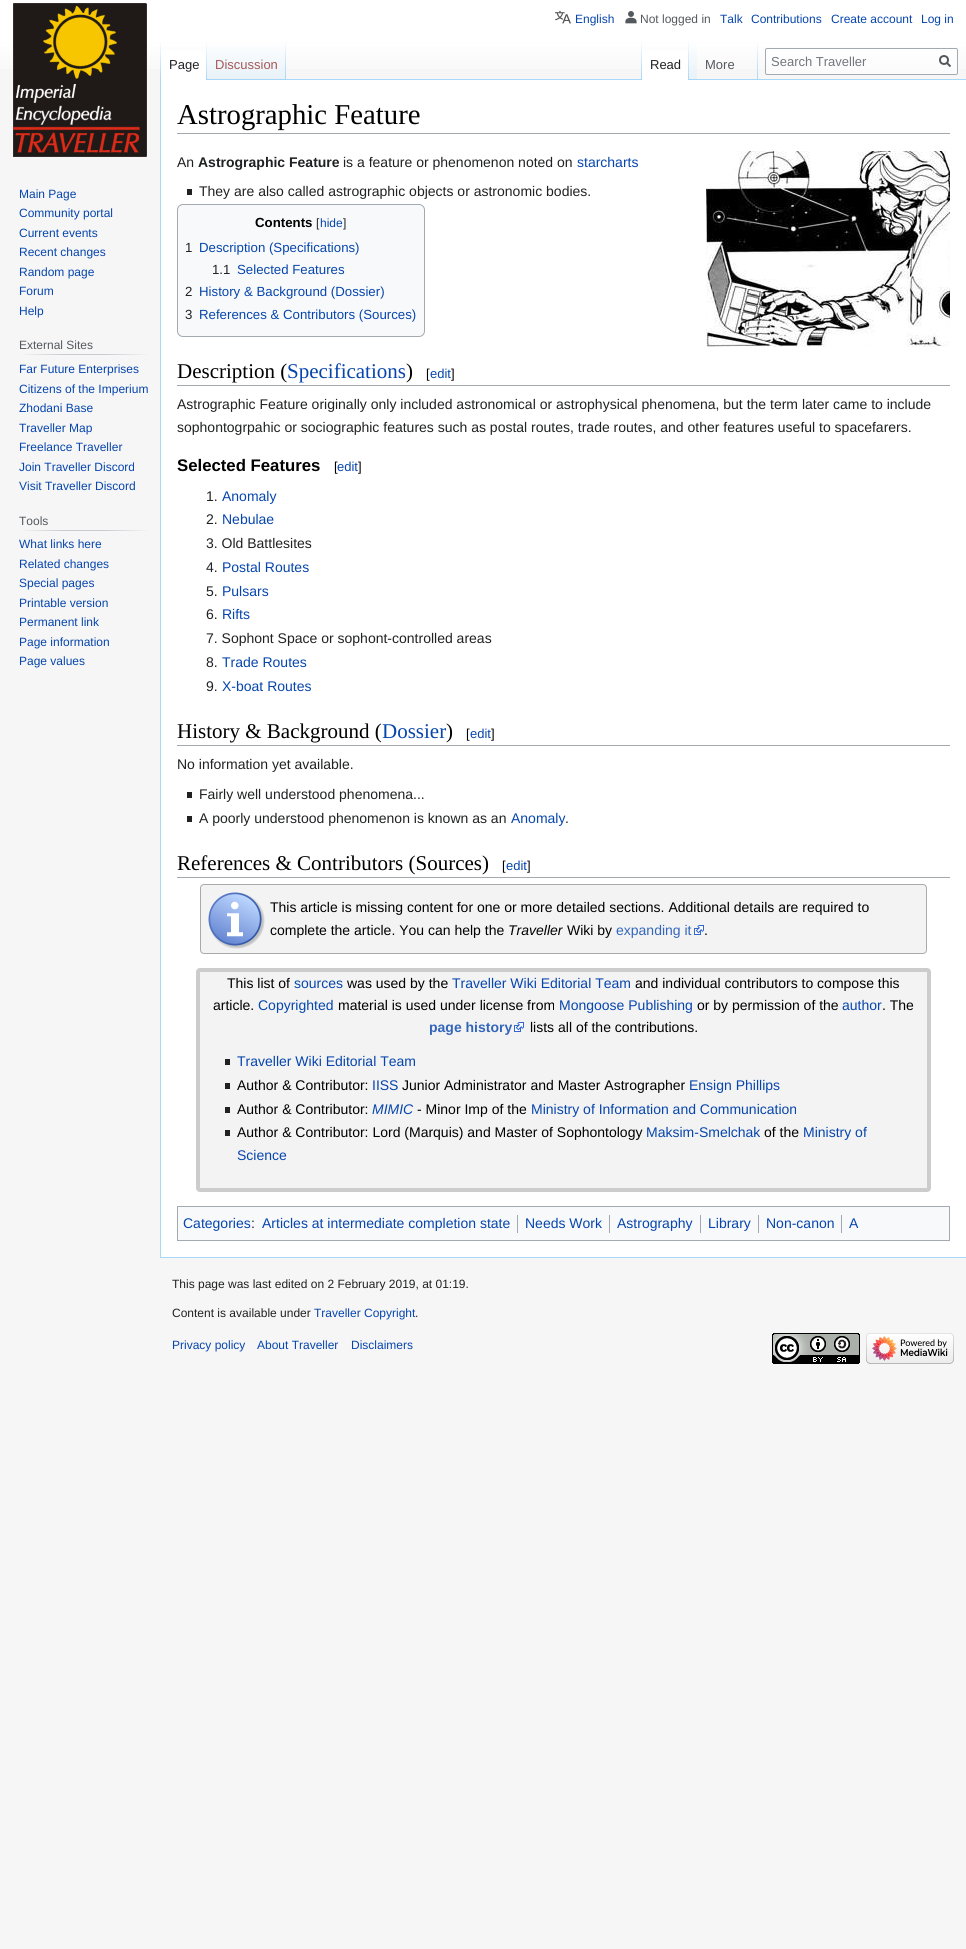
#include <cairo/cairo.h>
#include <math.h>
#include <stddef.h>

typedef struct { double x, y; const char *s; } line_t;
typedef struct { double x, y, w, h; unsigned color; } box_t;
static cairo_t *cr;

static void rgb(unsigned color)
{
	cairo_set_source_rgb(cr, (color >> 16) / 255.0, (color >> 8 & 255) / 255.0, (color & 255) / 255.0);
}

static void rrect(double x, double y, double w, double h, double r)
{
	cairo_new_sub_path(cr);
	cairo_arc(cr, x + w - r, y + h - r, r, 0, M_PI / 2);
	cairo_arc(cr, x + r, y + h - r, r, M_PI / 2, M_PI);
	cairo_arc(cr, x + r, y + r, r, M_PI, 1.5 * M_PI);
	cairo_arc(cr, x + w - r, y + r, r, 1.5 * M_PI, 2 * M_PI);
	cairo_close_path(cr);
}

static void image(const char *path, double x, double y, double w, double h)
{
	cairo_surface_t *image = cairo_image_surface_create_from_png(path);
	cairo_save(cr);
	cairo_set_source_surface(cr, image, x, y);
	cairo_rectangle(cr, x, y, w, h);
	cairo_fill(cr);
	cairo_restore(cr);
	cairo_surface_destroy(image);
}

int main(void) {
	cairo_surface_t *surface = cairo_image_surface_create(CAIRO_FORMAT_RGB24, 966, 1949);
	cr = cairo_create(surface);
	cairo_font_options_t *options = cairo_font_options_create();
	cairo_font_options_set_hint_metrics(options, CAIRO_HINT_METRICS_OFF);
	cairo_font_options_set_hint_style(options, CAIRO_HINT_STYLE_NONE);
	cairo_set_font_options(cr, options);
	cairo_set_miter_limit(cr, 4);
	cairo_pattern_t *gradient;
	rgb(0xf6f6f6);
	cairo_paint(cr);
	gradient = cairo_pattern_create_linear(483, 0, 483, 80);
	cairo_pattern_add_color_stop_rgba(gradient, 0.5, 1, 1, 1, 1);
	cairo_pattern_add_color_stop_rgba(gradient, 1, 0.965, 0.965, 0.965, 1);
	cairo_set_source(cr, gradient);
	cairo_pattern_destroy(gradient);
	cairo_rectangle(cr, 0, 0, 966, 69);
	cairo_fill(cr);
	image("img/1.png", 555, 10, 16, 14);
	image("img/2.png", 625, 11, 12, 13);
	rgb(0xa7d7f9);
	cairo_rectangle(cr, 160, 1257, 806, 1);
	cairo_fill(cr);
	cairo_rectangle(cr, 160, 79, 1, 1179);
	cairo_fill(cr);
	gradient = cairo_pattern_create_linear(161, 40, 161, 80);
	cairo_pattern_add_color_stop_rgba(gradient, 0, 0.655, 0.843, 0.976, 0);
	cairo_pattern_add_color_stop_rgba(gradient, 1, 0.655, 0.843, 0.976, 1);
	cairo_set_source(cr, gradient);
	cairo_pattern_destroy(gradient);
	cairo_rectangle(cr, 160, 40, 1, 40);
	cairo_fill(cr);
	rgb(0xffffff);
	cairo_rectangle(cr, 161, 51, 45, 29);
	cairo_fill(cr);
	gradient = cairo_pattern_create_linear(207, 40, 207, 80);
	cairo_pattern_add_color_stop_rgba(gradient, 0, 1, 1, 1, 1);
	cairo_pattern_add_color_stop_rgba(gradient, 1, 0.655, 0.843, 0.976, 1);
	cairo_set_source(cr, gradient);
	cairo_pattern_destroy(gradient);
	cairo_rectangle(cr, 206, 40, 1, 40);
	cairo_fill(cr);
	gradient = cairo_pattern_create_linear(247, 80, 247, 40);
	cairo_pattern_add_color_stop_rgba(gradient, 0, 0.467, 0.757, 0.965, 1);
	cairo_pattern_add_color_stop_rgba(gradient, 0.03, 0.91, 0.949, 0.973, 1);
	cairo_pattern_add_color_stop_rgba(gradient, 1, 1, 1, 1, 1);
	cairo_set_source(cr, gradient);
	cairo_pattern_destroy(gradient);
	cairo_rectangle(cr, 207, 46, 79, 34);
	cairo_fill(cr);
	gradient = cairo_pattern_create_linear(286, 40, 286, 80);
	cairo_pattern_add_color_stop_rgba(gradient, 0, 0.655, 0.843, 0.976, 0);
	cairo_pattern_add_color_stop_rgba(gradient, 1, 0.655, 0.843, 0.976, 1);
	cairo_set_source(cr, gradient);
	cairo_pattern_destroy(gradient);
	cairo_rectangle(cr, 285, 40, 1, 40);
	cairo_fill(cr);
	rgb(0xa7d7f9);
	cairo_rectangle(cr, 286, 79, 680, 1);
	cairo_fill(cr);
	gradient = cairo_pattern_create_linear(642, 40, 642, 80);
	cairo_pattern_add_color_stop_rgba(gradient, 0, 0.655, 0.843, 0.976, 0);
	cairo_pattern_add_color_stop_rgba(gradient, 1, 0.655, 0.843, 0.976, 1);
	cairo_set_source(cr, gradient);
	cairo_pattern_destroy(gradient);
	cairo_rectangle(cr, 641, 40, 1, 40);
	cairo_fill(cr);
	rgb(0xffffff);
	cairo_rectangle(cr, 642, 51, 46, 29);
	cairo_fill(cr);
	gradient = cairo_pattern_create_linear(689, 40, 689, 80);
	cairo_pattern_add_color_stop_rgba(gradient, 0, 1, 1, 1, 1);
	cairo_pattern_add_color_stop_rgba(gradient, 1, 0.655, 0.843, 0.976, 1);
	cairo_set_source(cr, gradient);
	cairo_pattern_destroy(gradient);
	cairo_rectangle(cr, 688, 40, 1, 40);
	cairo_fill(cr);
	gradient = cairo_pattern_create_linear(693, 80, 693, 40);
	cairo_pattern_add_color_stop_rgba(gradient, 0, 0.467, 0.757, 0.965, 1);
	cairo_pattern_add_color_stop_rgba(gradient, 0.03, 0.91, 0.949, 0.973, 1);
	cairo_pattern_add_color_stop_rgba(gradient, 1, 1, 1, 1, 1);
	cairo_set_source(cr, gradient);
	cairo_pattern_destroy(gradient);
	cairo_rectangle(cr, 689, 40, 8, 40);
	cairo_fill(cr);
	gradient = cairo_pattern_create_linear(758, 40, 758, 80);
	cairo_pattern_add_color_stop_rgba(gradient, 0, 0.655, 0.843, 0.976, 0);
	cairo_pattern_add_color_stop_rgba(gradient, 1, 0.655, 0.843, 0.976, 1);
	cairo_set_source(cr, gradient);
	cairo_pattern_destroy(gradient);
	cairo_rectangle(cr, 757, 40, 1, 40);
	cairo_fill(cr);
	cairo_set_source_rgba(cr, 1, 1, 1, 0.5);
	rrect(765.5, 48.5, 192, 26, 1.5);
	cairo_fill_preserve(cr);
	rgb(0xa2a9b1);
	cairo_set_line_width(cr, 1);
	cairo_stroke(cr);
	cairo_new_path(cr);
	cairo_move_to(cr, 950.5, 66.5);
	cairo_line_to(cr, 946.5, 62.5);
	rgb(0x54595d);
	cairo_set_line_width(cr, 2);
	cairo_stroke(cr);
	cairo_arc(cr, 944, 60, 4, 0, 2 * M_PI);
	cairo_stroke(cr);
	image("img/3.png", 13, 3, 134, 154);
	gradient = cairo_pattern_create_linear(19, 355, 150, 355);
	cairo_pattern_add_color_stop_rgba(gradient, 0, 0.965, 0.965, 0.965, 1);
	cairo_pattern_add_color_stop_rgba(gradient, 0.33, 0.784, 0.8, 0.82, 1);
	cairo_pattern_add_color_stop_rgba(gradient, 0.66, 0.784, 0.8, 0.82, 1);
	cairo_pattern_add_color_stop_rgba(gradient, 1, 0.965, 0.965, 0.965, 1);
	cairo_set_source(cr, gradient);
	cairo_pattern_destroy(gradient);
	cairo_rectangle(cr, 19, 354, 131, 1);
	cairo_fill(cr);
	gradient = cairo_pattern_create_linear(19, 531, 150, 531);
	cairo_pattern_add_color_stop_rgba(gradient, 0, 0.965, 0.965, 0.965, 1);
	cairo_pattern_add_color_stop_rgba(gradient, 0.33, 0.784, 0.8, 0.82, 1);
	cairo_pattern_add_color_stop_rgba(gradient, 0.66, 0.784, 0.8, 0.82, 1);
	cairo_pattern_add_color_stop_rgba(gradient, 1, 0.965, 0.965, 0.965, 1);
	cairo_set_source(cr, gradient);
	cairo_pattern_destroy(gradient);
	cairo_rectangle(cr, 19, 530, 131, 1);
	cairo_fill(cr);
	rgb(0xffffff);
	cairo_rectangle(cr, 161, 80, 805, 1177);
	cairo_fill(cr);
	rgb(0xa2a9b1);
	cairo_rectangle(cr, 177, 133, 773, 1);
	cairo_fill(cr);
	image("img/4.png", 706, 151, 244, 196);
	rgb(0x202122);
	cairo_rectangle(cr, 187, 189, 5, 6);
	cairo_fill(cr);
	rgb(0xf8f9fa);
	rrect(177.5, 204.5, 247, 132, 5.5);
	cairo_fill_preserve(cr);
	rgb(0xa2a9b1);
	cairo_set_line_width(cr, 1);
	cairo_stroke(cr);
	{
		static const box_t items[] = {
			{177, 385, 773, 1, 0xa2a9b1},
			{177, 745, 773, 1, 0xa2a9b1},
			{187, 792, 5, 6, 0x202122},
			{187, 816, 5, 6, 0x202122},
			{177, 877, 773, 1, 0xa2a9b1},
		};
		for (size_t i = 0; i < sizeof items / sizeof *items; i++) {
			rgb(items[i].color);
			cairo_rectangle(cr, items[i].x, items[i].y, items[i].w, items[i].h);
			cairo_fill(cr);
		}
	}
	rgb(0xf3f3f3);
	rrect(200.5, 884.5, 726, 69, 3.5);
	cairo_fill_preserve(cr);
	rgb(0xa8aca8);
	cairo_stroke(cr);
	image("img/5.png", 208, 892, 57, 57);
	image("img/6.png", 694, 925, 10, 10);
	rgb(0xf3f3f3);
	rrect(198, 970, 731, 220, 2);
	cairo_fill_preserve(cr);
	rgb(0xcccccc);
	cairo_set_line_width(cr, 4);
	cairo_stroke(cr);
	image("img/6.png", 514, 1022, 10, 10);
	{
		static const box_t items[] = {
			{225, 1059, 5, 6, 0x202122},
			{225, 1083, 5, 6, 0x202122},
			{225, 1107, 5, 6, 0x202122},
			{225, 1130, 5, 6, 0x202122},
		};
		for (size_t i = 0; i < sizeof items / sizeof *items; i++) {
			rgb(items[i].color);
			cairo_rectangle(cr, items[i].x, items[i].y, items[i].w, items[i].h);
			cairo_fill(cr);
		}
	}
	rgb(0xf8f9fa);
	cairo_rectangle(cr, 177.5, 1206.5, 772, 34);
	cairo_fill_preserve(cr);
	rgb(0xa2a9b1);
	cairo_set_line_width(cr, 1);
	cairo_stroke(cr);
	{
		static const box_t items[] = {
			{517, 1215, 1, 18, 0xa2a9b1},
			{609, 1215, 1, 18, 0xa2a9b1},
			{700, 1215, 1, 18, 0xa2a9b1},
			{758, 1215, 1, 18, 0xa2a9b1},
			{841, 1215, 1, 18, 0xa2a9b1},
		};
		for (size_t i = 0; i < sizeof items / sizeof *items; i++) {
			rgb(items[i].color);
			cairo_rectangle(cr, items[i].x, items[i].y, items[i].w, items[i].h);
			cairo_fill(cr);
		}
	}
	image("img/7.png", 772, 1333, 88, 31);
	image("img/8.png", 866, 1333, 88, 31);
	cairo_select_font_face(cr, "Liberation Sans", CAIRO_FONT_SLANT_NORMAL, CAIRO_FONT_WEIGHT_NORMAL);
	cairo_set_font_size(cr, 12);
	rgb(0x0645ad);
	cairo_move_to(cr, 575, 23);
	cairo_show_text(cr, "English");
	rgb(0x54595d);
	cairo_move_to(cr, 640, 23);
	cairo_show_text(cr, "Not logged in");
	rgb(0x0645ad);
	{
		static const line_t items[] = {
			{720, 23, "Talk"},
			{751, 23, "Contributions"},
			{831, 23, "Create account"},
			{921, 23, "Log in"},
		};
		for (size_t i = 0; i < sizeof items / sizeof *items; i++) {
			cairo_move_to(cr, items[i].x, items[i].y);
			cairo_show_text(cr, items[i].s);
		}
	}
	cairo_set_font_size(cr, 13);
	rgb(0x202122);
	cairo_move_to(cr, 169, 69);
	cairo_show_text(cr, "Page");
	rgb(0xa55858);
	cairo_move_to(cr, 215, 69);
	cairo_show_text(cr, "Discussion");
	rgb(0x202122);
	cairo_move_to(cr, 650, 69);
	cairo_show_text(cr, "Read");
	rgb(0x54595d);
	cairo_move_to(cr, 705, 69);
	cairo_show_text(cr, "More");
	rgb(0x72777d);
	cairo_move_to(cr, 771, 66);
	cairo_show_text(cr, "Search Traveller");
	cairo_set_font_size(cr, 12);
	rgb(0x0645ad);
	{
		static const line_t items[] = {
			{19, 198, "Main Page"},
			{19, 217, "Community portal"},
			{19, 237, "Current events"},
			{19, 256, "Recent changes"},
			{19, 276, "Random page"},
			{19, 295, "Forum"},
			{19, 315, "Help"},
		};
		for (size_t i = 0; i < sizeof items / sizeof *items; i++) {
			cairo_move_to(cr, items[i].x, items[i].y);
			cairo_show_text(cr, items[i].s);
		}
	}
	rgb(0x54595d);
	cairo_move_to(cr, 19, 349);
	cairo_show_text(cr, "External Sites");
	rgb(0x0645ad);
	{
		static const line_t items[] = {
			{19, 373, "Far Future Enterprises"},
			{19, 393, "Citizens of the Imperium"},
			{19, 412, "Zhodani Base"},
			{19, 432, "Traveller Map"},
			{19, 451, "Freelance Traveller"},
			{19, 471, "Join Traveller Discord"},
			{19, 490, "Visit Traveller Discord"},
		};
		for (size_t i = 0; i < sizeof items / sizeof *items; i++) {
			cairo_move_to(cr, items[i].x, items[i].y);
			cairo_show_text(cr, items[i].s);
		}
	}
	rgb(0x54595d);
	cairo_move_to(cr, 19, 525);
	cairo_show_text(cr, "Tools");
	rgb(0x0645ad);
	{
		static const line_t items[] = {
			{19, 548, "What links here"},
			{19, 568, "Related changes"},
			{19, 587, "Special pages"},
			{19, 607, "Printable version"},
			{19, 626, "Permanent link"},
			{19, 646, "Page information"},
			{19, 665, "Page values"},
		};
		for (size_t i = 0; i < sizeof items / sizeof *items; i++) {
			cairo_move_to(cr, items[i].x, items[i].y);
			cairo_show_text(cr, items[i].s);
		}
	}
	cairo_select_font_face(cr, "Liberation Serif", CAIRO_FONT_SLANT_NORMAL, CAIRO_FONT_WEIGHT_NORMAL);
	cairo_set_font_size(cr, 28.75);
	rgb(0x000000);
	cairo_move_to(cr, 177, 124);
	cairo_show_text(cr, "Astrographic Feature");
	cairo_select_font_face(cr, "Liberation Sans", CAIRO_FONT_SLANT_NORMAL, CAIRO_FONT_WEIGHT_NORMAL);
	cairo_set_font_size(cr, 14);
	rgb(0x202122);
	cairo_move_to(cr, 177, 167);
	cairo_show_text(cr, "An");
	cairo_select_font_face(cr, "Liberation Sans", CAIRO_FONT_SLANT_NORMAL, CAIRO_FONT_WEIGHT_BOLD);
	cairo_move_to(cr, 198, 167);
	cairo_show_text(cr, "Astrographic Feature");
	cairo_select_font_face(cr, "Liberation Sans", CAIRO_FONT_SLANT_NORMAL, CAIRO_FONT_WEIGHT_NORMAL);
	cairo_move_to(cr, 343, 167);
	cairo_show_text(cr, "is a feature or phenomenon noted on");
	rgb(0x0645ad);
	cairo_move_to(cr, 577, 167);
	cairo_show_text(cr, "starcharts");
	rgb(0x202122);
	cairo_move_to(cr, 199, 196);
	cairo_show_text(cr, "They are also called astrographic objects or astronomic bodies.");
	cairo_select_font_face(cr, "Liberation Sans", CAIRO_FONT_SLANT_NORMAL, CAIRO_FONT_WEIGHT_BOLD);
	cairo_set_font_size(cr, 13.25);
	rgb(0x000000);
	cairo_move_to(cr, 255, 227);
	cairo_show_text(cr, "Contents");
	cairo_select_font_face(cr, "Liberation Sans", CAIRO_FONT_SLANT_NORMAL, CAIRO_FONT_WEIGHT_NORMAL);
	cairo_set_font_size(cr, 12);
	rgb(0x202122);
	cairo_move_to(cr, 316, 227);
	cairo_show_text(cr, "[");
	rgb(0x0645ad);
	cairo_move_to(cr, 320, 227);
	cairo_show_text(cr, "hide");
	rgb(0x202122);
	cairo_move_to(cr, 343, 227);
	cairo_show_text(cr, "]");
	cairo_set_font_size(cr, 13.25);
	cairo_move_to(cr, 185, 252);
	cairo_show_text(cr, "1");
	rgb(0x0645ad);
	cairo_move_to(cr, 199, 252);
	cairo_show_text(cr, "Description (Specifications)");
	rgb(0x202122);
	cairo_move_to(cr, 212, 274);
	cairo_show_text(cr, "1.1");
	rgb(0x0645ad);
	cairo_move_to(cr, 237, 274);
	cairo_show_text(cr, "Selected Features");
	rgb(0x202122);
	cairo_move_to(cr, 185, 296);
	cairo_show_text(cr, "2");
	rgb(0x0645ad);
	cairo_move_to(cr, 199, 296);
	cairo_show_text(cr, "History & Background (Dossier)");
	rgb(0x202122);
	cairo_move_to(cr, 185, 319);
	cairo_show_text(cr, "3");
	rgb(0x0645ad);
	cairo_move_to(cr, 199, 319);
	cairo_show_text(cr, "References & Contributors (Sources)");
	cairo_select_font_face(cr, "Liberation Serif", CAIRO_FONT_SLANT_NORMAL, CAIRO_FONT_WEIGHT_NORMAL);
	cairo_set_font_size(cr, 21);
	rgb(0x000000);
	cairo_move_to(cr, 177, 378);
	cairo_show_text(cr, "Description (");
	rgb(0x0645ad);
	cairo_move_to(cr, 287, 378);
	cairo_show_text(cr, "Specifications");
	rgb(0x000000);
	cairo_move_to(cr, 406, 378);
	cairo_show_text(cr, ")");
	cairo_select_font_face(cr, "Liberation Sans", CAIRO_FONT_SLANT_NORMAL, CAIRO_FONT_WEIGHT_NORMAL);
	cairo_set_font_size(cr, 13);
	cairo_move_to(cr, 426, 378);
	cairo_show_text(cr, "[");
	rgb(0x0645ad);
	cairo_move_to(cr, 430, 378);
	cairo_show_text(cr, "edit");
	rgb(0x000000);
	cairo_move_to(cr, 451, 378);
	cairo_show_text(cr, "]");
	cairo_set_font_size(cr, 14);
	rgb(0x202122);
	cairo_move_to(cr, 177, 409);
	cairo_show_text(cr, "Astrographic Feature originally only included astronomical or astrophysical phenomena, but the term later came to include");
	cairo_move_to(cr, 177, 432);
	cairo_show_text(cr, "sophontogrpahic or sociographic features such as postal routes, trade routes, and other features useful to spacefarers.");
	cairo_select_font_face(cr, "Liberation Sans", CAIRO_FONT_SLANT_NORMAL, CAIRO_FONT_WEIGHT_BOLD);
	cairo_set_font_size(cr, 16.75);
	rgb(0x000000);
	cairo_move_to(cr, 177, 471);
	cairo_show_text(cr, "Selected Features");
	cairo_select_font_face(cr, "Liberation Sans", CAIRO_FONT_SLANT_NORMAL, CAIRO_FONT_WEIGHT_NORMAL);
	cairo_set_font_size(cr, 13);
	cairo_move_to(cr, 334, 471);
	cairo_show_text(cr, "[");
	rgb(0x0645ad);
	cairo_move_to(cr, 337, 471);
	cairo_show_text(cr, "edit");
	rgb(0x000000);
	cairo_move_to(cr, 358, 471);
	cairo_show_text(cr, "]");
	cairo_set_font_size(cr, 14);
	rgb(0x202122);
	cairo_move_to(cr, 206, 501);
	cairo_show_text(cr, "1.");
	rgb(0x0645ad);
	cairo_move_to(cr, 222, 501);
	cairo_show_text(cr, "Anomaly");
	rgb(0x202122);
	cairo_move_to(cr, 206, 524);
	cairo_show_text(cr, "2.");
	rgb(0x0645ad);
	cairo_move_to(cr, 222, 524);
	cairo_show_text(cr, "Nebulae");
	rgb(0x202122);
	cairo_move_to(cr, 206, 548);
	cairo_show_text(cr, "3. Old Battlesites");
	cairo_move_to(cr, 206, 572);
	cairo_show_text(cr, "4.");
	rgb(0x0645ad);
	cairo_move_to(cr, 222, 572);
	cairo_show_text(cr, "Postal Routes");
	rgb(0x202122);
	cairo_move_to(cr, 206, 596);
	cairo_show_text(cr, "5.");
	rgb(0x0645ad);
	cairo_move_to(cr, 222, 596);
	cairo_show_text(cr, "Pulsars");
	rgb(0x202122);
	cairo_move_to(cr, 206, 619);
	cairo_show_text(cr, "6.");
	rgb(0x0645ad);
	cairo_move_to(cr, 222, 619);
	cairo_show_text(cr, "Rifts");
	rgb(0x202122);
	cairo_move_to(cr, 206, 643);
	cairo_show_text(cr, "7. Sophont Space or sophont-controlled areas");
	cairo_move_to(cr, 206, 667);
	cairo_show_text(cr, "8.");
	rgb(0x0645ad);
	cairo_move_to(cr, 222, 667);
	cairo_show_text(cr, "Trade Routes");
	rgb(0x202122);
	cairo_move_to(cr, 206, 691);
	cairo_show_text(cr, "9.");
	rgb(0x0645ad);
	cairo_move_to(cr, 222, 691);
	cairo_show_text(cr, "X-boat Routes");
	cairo_select_font_face(cr, "Liberation Serif", CAIRO_FONT_SLANT_NORMAL, CAIRO_FONT_WEIGHT_NORMAL);
	cairo_set_font_size(cr, 21);
	rgb(0x000000);
	cairo_move_to(cr, 177, 738);
	cairo_show_text(cr, "History & Background (");
	rgb(0x0645ad);
	cairo_move_to(cr, 382, 738);
	cairo_show_text(cr, "Dossier");
	rgb(0x000000);
	cairo_move_to(cr, 446, 738);
	cairo_show_text(cr, ")");
	cairo_select_font_face(cr, "Liberation Sans", CAIRO_FONT_SLANT_NORMAL, CAIRO_FONT_WEIGHT_NORMAL);
	cairo_set_font_size(cr, 13);
	cairo_move_to(cr, 466, 738);
	cairo_show_text(cr, "[");
	rgb(0x0645ad);
	cairo_move_to(cr, 470, 738);
	cairo_show_text(cr, "edit");
	rgb(0x000000);
	cairo_move_to(cr, 491, 738);
	cairo_show_text(cr, "]");
	cairo_set_font_size(cr, 14);
	rgb(0x202122);
	{
		static const line_t items[] = {
			{177, 769, "No information yet available."},
			{199, 799, "Fairly well understood phenomena..."},
			{199, 823, "A poorly understood phenomenon is known as an"},
		};
		for (size_t i = 0; i < sizeof items / sizeof *items; i++) {
			cairo_move_to(cr, items[i].x, items[i].y);
			cairo_show_text(cr, items[i].s);
		}
	}
	rgb(0x0645ad);
	cairo_move_to(cr, 511, 823);
	cairo_show_text(cr, "Anomaly");
	rgb(0x202122);
	cairo_move_to(cr, 565, 823);
	cairo_show_text(cr, ".");
	cairo_select_font_face(cr, "Liberation Serif", CAIRO_FONT_SLANT_NORMAL, CAIRO_FONT_WEIGHT_NORMAL);
	cairo_set_font_size(cr, 21);
	rgb(0x000000);
	cairo_move_to(cr, 177, 870);
	cairo_show_text(cr, "References & Contributors (Sources)");
	cairo_select_font_face(cr, "Liberation Sans", CAIRO_FONT_SLANT_NORMAL, CAIRO_FONT_WEIGHT_NORMAL);
	cairo_set_font_size(cr, 13);
	cairo_move_to(cr, 502, 870);
	cairo_show_text(cr, "[");
	rgb(0x0645ad);
	cairo_move_to(cr, 506, 870);
	cairo_show_text(cr, "edit");
	rgb(0x000000);
	cairo_move_to(cr, 527, 870);
	cairo_show_text(cr, "]");
	cairo_set_font_size(cr, 14);
	cairo_move_to(cr, 270, 912);
	cairo_show_text(cr, "This article is missing content for one or more detailed sections. Additional details are required to");
	cairo_move_to(cr, 270, 935);
	cairo_show_text(cr, "complete the article. You can help the");
	cairo_select_font_face(cr, "Liberation Sans", CAIRO_FONT_SLANT_ITALIC, CAIRO_FONT_WEIGHT_NORMAL);
	cairo_move_to(cr, 508, 935);
	cairo_show_text(cr, "Traveller");
	cairo_select_font_face(cr, "Liberation Sans", CAIRO_FONT_SLANT_NORMAL, CAIRO_FONT_WEIGHT_NORMAL);
	cairo_move_to(cr, 567, 935);
	cairo_show_text(cr, "Wiki by");
	rgb(0x3366bb);
	cairo_move_to(cr, 616, 935);
	cairo_show_text(cr, "expanding it");
	rgb(0x000000);
	cairo_move_to(cr, 704, 935);
	cairo_show_text(cr, ".");
	cairo_move_to(cr, 227, 988);
	cairo_show_text(cr, "This list of");
	rgb(0x0645ad);
	cairo_move_to(cr, 294, 988);
	cairo_show_text(cr, "sources");
	rgb(0x000000);
	cairo_move_to(cr, 347, 988);
	cairo_show_text(cr, "was used by the");
	rgb(0x0645ad);
	cairo_move_to(cr, 452, 988);
	cairo_show_text(cr, "Traveller Wiki Editorial Team");
	rgb(0x000000);
	cairo_move_to(cr, 635, 988);
	cairo_show_text(cr, "and individual contributors to compose this");
	cairo_move_to(cr, 213, 1010);
	cairo_show_text(cr, "article.");
	rgb(0x0645ad);
	cairo_move_to(cr, 258, 1010);
	cairo_show_text(cr, "Copyrighted");
	rgb(0x000000);
	cairo_move_to(cr, 338, 1010);
	cairo_show_text(cr, "material is used under license from");
	rgb(0x0645ad);
	cairo_move_to(cr, 559, 1010);
	cairo_show_text(cr, "Mongoose Publishing");
	rgb(0x000000);
	cairo_move_to(cr, 697, 1010);
	cairo_show_text(cr, "or by permission of the");
	rgb(0x0645ad);
	cairo_move_to(cr, 842, 1010);
	cairo_show_text(cr, "author");
	rgb(0x000000);
	cairo_move_to(cr, 882, 1010);
	cairo_show_text(cr, ". The");
	cairo_select_font_face(cr, "Liberation Sans", CAIRO_FONT_SLANT_NORMAL, CAIRO_FONT_WEIGHT_BOLD);
	rgb(0x3366bb);
	cairo_move_to(cr, 429, 1032);
	cairo_show_text(cr, "page history");
	cairo_select_font_face(cr, "Liberation Sans", CAIRO_FONT_SLANT_NORMAL, CAIRO_FONT_WEIGHT_NORMAL);
	rgb(0x000000);
	cairo_move_to(cr, 530, 1032);
	cairo_show_text(cr, "lists all of the contributions.");
	rgb(0x0645ad);
	cairo_move_to(cr, 237, 1066);
	cairo_show_text(cr, "Traveller Wiki Editorial Team");
	rgb(0x000000);
	cairo_move_to(cr, 237, 1090);
	cairo_show_text(cr, "Author & Contributor:");
	rgb(0x0645ad);
	cairo_move_to(cr, 372, 1090);
	cairo_show_text(cr, "IISS");
	rgb(0x000000);
	cairo_move_to(cr, 402, 1090);
	cairo_show_text(cr, "Junior Administrator and Master Astrographer");
	rgb(0x0645ad);
	cairo_move_to(cr, 689, 1090);
	cairo_show_text(cr, "Ensign Phillips");
	rgb(0x000000);
	cairo_move_to(cr, 237, 1114);
	cairo_show_text(cr, "Author & Contributor:");
	cairo_select_font_face(cr, "Liberation Sans", CAIRO_FONT_SLANT_ITALIC, CAIRO_FONT_WEIGHT_NORMAL);
	rgb(0x0645ad);
	cairo_move_to(cr, 372, 1114);
	cairo_show_text(cr, "MIMIC");
	cairo_select_font_face(cr, "Liberation Sans", CAIRO_FONT_SLANT_NORMAL, CAIRO_FONT_WEIGHT_NORMAL);
	rgb(0x000000);
	cairo_move_to(cr, 417, 1114);
	cairo_show_text(cr, "- Minor Imp of the");
	rgb(0x0645ad);
	cairo_move_to(cr, 531, 1114);
	cairo_show_text(cr, "Ministry of Information and Communication");
	rgb(0x000000);
	cairo_move_to(cr, 237, 1137);
	cairo_show_text(cr, "Author & Contributor: Lord (Marquis) and Master of Sophontology");
	rgb(0x0645ad);
	cairo_move_to(cr, 646, 1137);
	cairo_show_text(cr, "Maksim-Smelchak");
	rgb(0x000000);
	cairo_move_to(cr, 764, 1137);
	cairo_show_text(cr, "of the");
	rgb(0x0645ad);
	{
		static const line_t items[] = {
			{803, 1137, "Ministry of"},
			{237, 1160, "Science"},
			{183, 1228, "Categories"},
		};
		for (size_t i = 0; i < sizeof items / sizeof *items; i++) {
			cairo_move_to(cr, items[i].x, items[i].y);
			cairo_show_text(cr, items[i].s);
		}
	}
	rgb(0x202122);
	cairo_move_to(cr, 251, 1228);
	cairo_show_text(cr, ":");
	rgb(0x0645ad);
	{
		static const line_t items[] = {
			{262, 1228, "Articles at intermediate completion state"},
			{525, 1228, "Needs Work"},
			{617, 1228, "Astrography"},
			{708, 1228, "Library"},
			{766, 1228, "Non-canon"},
			{849, 1228, "A"},
		};
		for (size_t i = 0; i < sizeof items / sizeof *items; i++) {
			cairo_move_to(cr, items[i].x, items[i].y);
			cairo_show_text(cr, items[i].s);
		}
	}
	cairo_set_font_size(cr, 12);
	rgb(0x202122);
	cairo_move_to(cr, 172, 1288);
	cairo_show_text(cr, "This page was last edited on 2 February 2019, at 01:19.");
	cairo_move_to(cr, 172, 1317);
	cairo_show_text(cr, "Content is available under");
	rgb(0x0645ad);
	cairo_move_to(cr, 314, 1317);
	cairo_show_text(cr, "Traveller Copyright");
	rgb(0x202122);
	cairo_move_to(cr, 415, 1317);
	cairo_show_text(cr, ".");
	rgb(0x0645ad);
	{
		static const line_t items[] = {
			{172, 1349, "Privacy policy"},
			{257, 1349, "About Traveller"},
			{351, 1349, "Disclaimers"},
		};
		for (size_t i = 0; i < sizeof items / sizeof *items; i++) {
			cairo_move_to(cr, items[i].x, items[i].y);
			cairo_show_text(cr, items[i].s);
		}
	}
	cairo_surface_write_to_png(surface, "page.png");
	cairo_font_options_destroy(options);
	cairo_destroy(cr);
	cairo_surface_destroy(surface);
	return 0;
}
